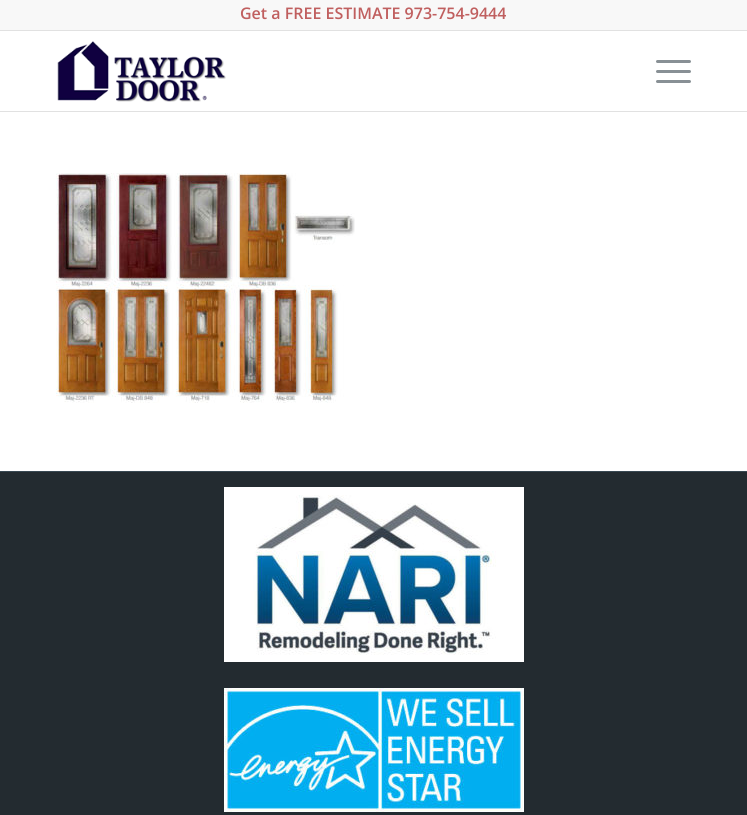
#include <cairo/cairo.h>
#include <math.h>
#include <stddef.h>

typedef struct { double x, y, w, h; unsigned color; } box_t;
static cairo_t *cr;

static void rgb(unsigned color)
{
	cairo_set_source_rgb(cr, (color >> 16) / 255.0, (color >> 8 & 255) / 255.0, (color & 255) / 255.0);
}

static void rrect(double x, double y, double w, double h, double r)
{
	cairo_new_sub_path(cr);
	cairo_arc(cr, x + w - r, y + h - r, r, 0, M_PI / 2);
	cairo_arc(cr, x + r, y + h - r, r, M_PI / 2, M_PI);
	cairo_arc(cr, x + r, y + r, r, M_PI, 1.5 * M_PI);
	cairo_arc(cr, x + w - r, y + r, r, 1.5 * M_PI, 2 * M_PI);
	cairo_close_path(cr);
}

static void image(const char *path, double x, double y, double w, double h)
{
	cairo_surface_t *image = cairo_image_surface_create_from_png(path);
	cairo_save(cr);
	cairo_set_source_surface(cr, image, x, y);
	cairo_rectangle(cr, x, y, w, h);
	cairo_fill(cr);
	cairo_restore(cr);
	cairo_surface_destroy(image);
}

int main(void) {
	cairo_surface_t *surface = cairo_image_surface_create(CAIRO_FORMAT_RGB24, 747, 815);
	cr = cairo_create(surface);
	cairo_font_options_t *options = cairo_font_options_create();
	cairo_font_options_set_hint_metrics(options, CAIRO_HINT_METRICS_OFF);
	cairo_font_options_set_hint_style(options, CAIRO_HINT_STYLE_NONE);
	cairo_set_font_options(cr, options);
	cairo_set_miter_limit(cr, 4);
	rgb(0xffffff);
	cairo_paint(cr);
	{
		static const box_t items[] = {
			{0, 0, 747, 30, 0xf8f8f8},
			{0, 30, 747, 1, 0xe1e1e1},
			{0, 111, 747, 1, 0xe1e1e1},
		};
		for (size_t i = 0; i < sizeof items / sizeof *items; i++) {
			rgb(items[i].color);
			cairo_rectangle(cr, items[i].x, items[i].y, items[i].w, items[i].h);
			cairo_fill(cr);
		}
	}
	image("img/1.png", 57, 41, 169, 61);
	rgb(0x889095);
	rrect(656, 70, 35, 3, 1.5);
	cairo_fill(cr);
	rrect(656, 60, 35, 3, 1.5);
	cairo_fill(cr);
	rrect(656, 80, 35, 3, 1.5);
	cairo_fill(cr);
	image("img/2.png", 56, 173, 299, 230);
	rgb(0x232b30);
	cairo_rectangle(cr, 0, 472, 747, 343);
	cairo_fill(cr);
	rgb(0x384852);
	cairo_rectangle(cr, 0, 471, 747, 1);
	cairo_fill(cr);
	image("img/3.png", 224, 487, 300, 175);
	image("img/4.png", 224, 688, 300, 124);
	cairo_select_font_face(cr, "Open Sans SemiBold", CAIRO_FONT_SLANT_NORMAL, CAIRO_FONT_WEIGHT_NORMAL);
	cairo_set_font_size(cr, 16);
	rgb(0xc05f5f);
	cairo_move_to(cr, 240, 19);
	cairo_show_text(cr, "Get a FREE ESTIMATE 973-754-9444");
	cairo_surface_write_to_png(surface, "page.png");
	cairo_font_options_destroy(options);
	cairo_destroy(cr);
	cairo_surface_destroy(surface);
	return 0;
}
